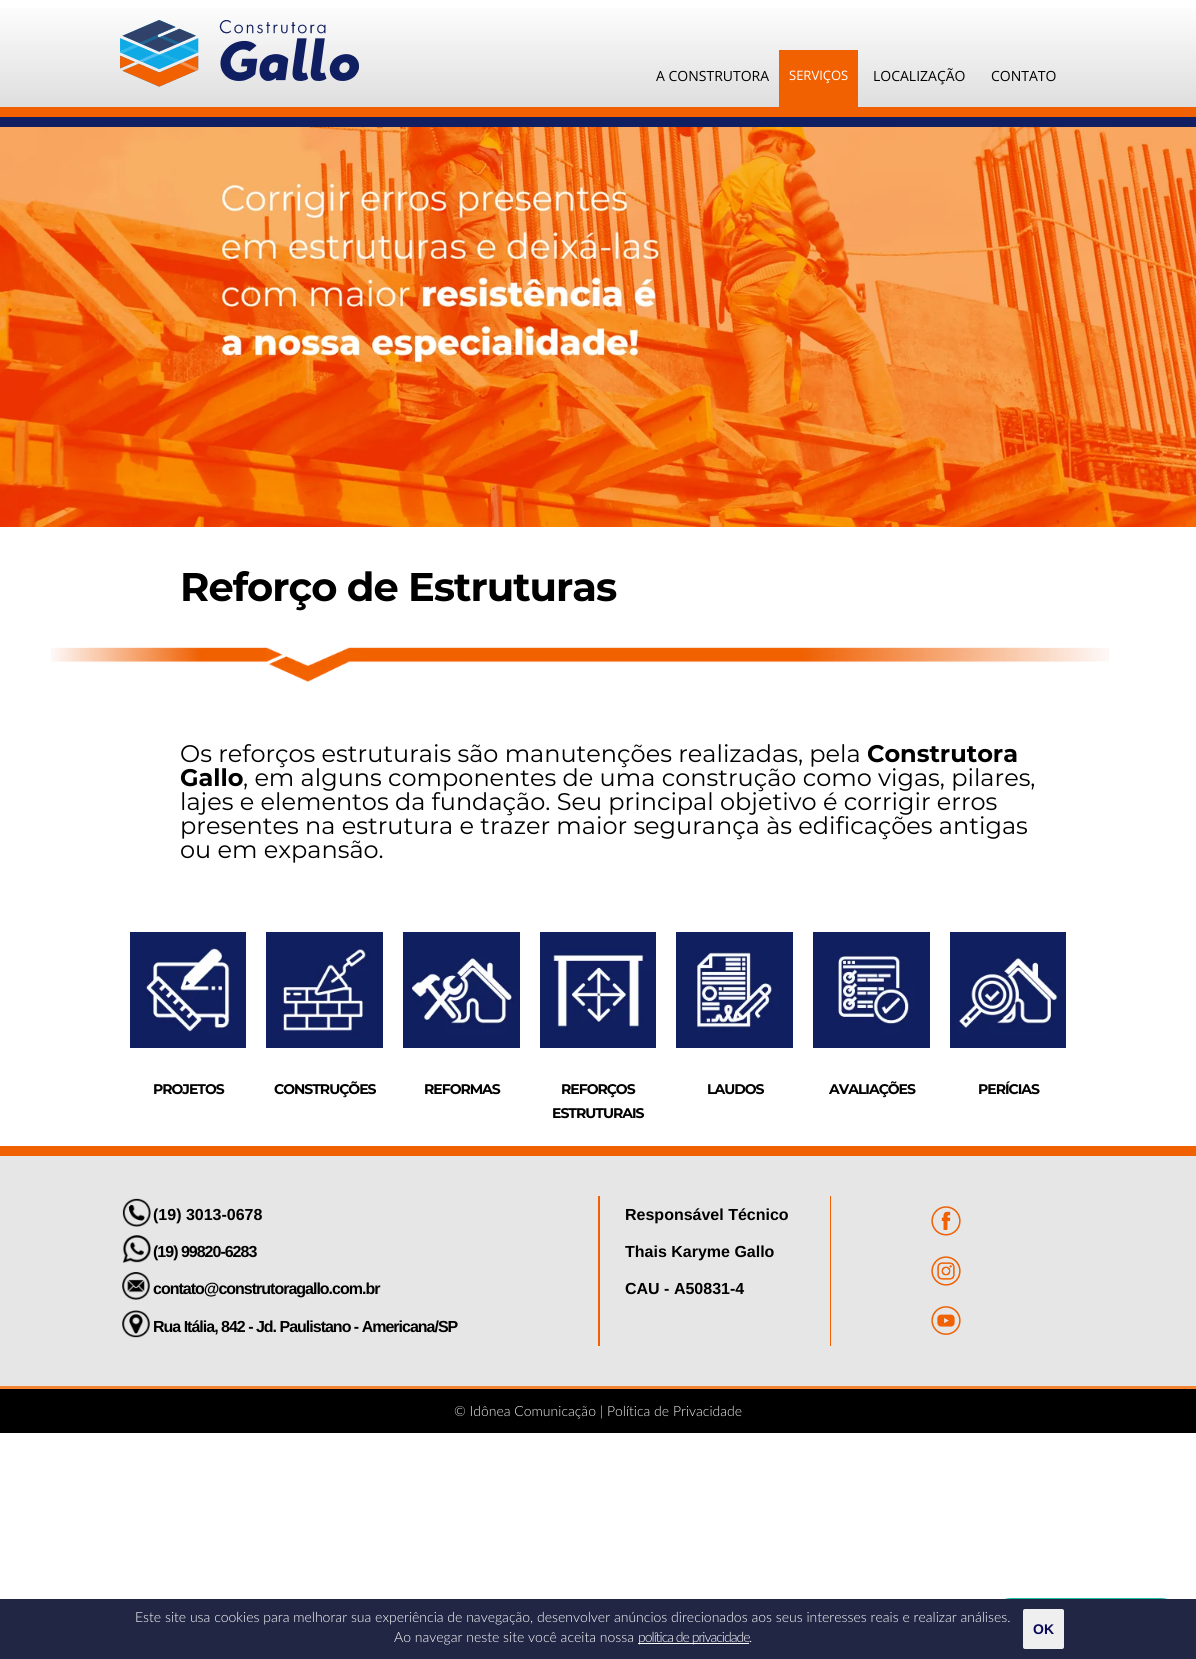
#include <cairo/cairo.h>
#include <math.h>
#include <stddef.h>

typedef struct { double x, y; const char *s; } line_t;
typedef struct { double x, y, w, h; unsigned color; } box_t;
static cairo_t *cr;

static void rgb(unsigned color)
{
	cairo_set_source_rgb(cr, (color >> 16) / 255.0, (color >> 8 & 255) / 255.0, (color & 255) / 255.0);
}

static void tracked(double x, double y, const char *s, double letter, double word)
{
	cairo_move_to(cr, x, y);
	while (*s) {
		char ch[5] = {0};
		int n = 0;
		do ch[n++] = *s++; while ((*s & 0xC0) == 0x80);
		cairo_show_text(cr, ch);
		cairo_rel_move_to(cr, letter + word * (*ch == ' '), 0);
	}
}

static void rrect(double x, double y, double w, double h, double r)
{
	cairo_new_sub_path(cr);
	cairo_arc(cr, x + w - r, y + h - r, r, 0, M_PI / 2);
	cairo_arc(cr, x + r, y + h - r, r, M_PI / 2, M_PI);
	cairo_arc(cr, x + r, y + r, r, M_PI, 1.5 * M_PI);
	cairo_arc(cr, x + w - r, y + r, r, 1.5 * M_PI, 2 * M_PI);
	cairo_close_path(cr);
}

static void image(const char *path, double x, double y, double w, double h)
{
	cairo_surface_t *image = cairo_image_surface_create_from_png(path);
	cairo_save(cr);
	cairo_set_source_surface(cr, image, x, y);
	cairo_rectangle(cr, x, y, w, h);
	cairo_fill(cr);
	cairo_restore(cr);
	cairo_surface_destroy(image);
}

int main(void) {
	cairo_surface_t *surface = cairo_image_surface_create(CAIRO_FORMAT_RGB24, 1196, 1659);
	cr = cairo_create(surface);
	cairo_font_options_t *options = cairo_font_options_create();
	cairo_font_options_set_hint_metrics(options, CAIRO_HINT_METRICS_OFF);
	cairo_font_options_set_hint_style(options, CAIRO_HINT_STYLE_NONE);
	cairo_set_font_options(cr, options);
	cairo_set_miter_limit(cr, 4);
	cairo_pattern_t *gradient;
	rgb(0xffffff);
	cairo_paint(cr);
	gradient = cairo_pattern_create_linear(598, 0, 598, 107);
	cairo_pattern_add_color_stop_rgba(gradient, 0, 1, 1, 1, 1);
	cairo_pattern_add_color_stop_rgba(gradient, 1, 0.871, 0.871, 0.871, 1);
	cairo_set_source(cr, gradient);
	cairo_pattern_destroy(gradient);
	cairo_rectangle(cr, 0, 8, 1196, 99);
	cairo_fill(cr);
	image("img/1.png", 120, 20, 239, 67);
	{
		static const box_t items[] = {
			{779, 50, 79, 57, 0xf26101},
			{0, 107, 1196, 10, 0xf26101},
			{0, 117, 1196, 10, 0x101f61},
		};
		for (size_t i = 0; i < sizeof items / sizeof *items; i++) {
			rgb(items[i].color);
			cairo_rectangle(cr, items[i].x, items[i].y, items[i].w, items[i].h);
			cairo_fill(cr);
		}
	}
	image("img/2.png", 0, 127, 1196, 400);
	image("img/3.png", 51, 647, 1058, 35);
	image("img/4.png", 130, 932, 116, 116);
	image("img/5.png", 266, 932, 117, 116);
	image("img/6.png", 403, 932, 117, 116);
	image("img/7.png", 540, 932, 116, 116);
	image("img/8.png", 676, 932, 117, 116);
	image("img/9.png", 813, 932, 117, 116);
	image("img/10.png", 950, 932, 116, 116);
	rgb(0xe6e6e6);
	cairo_rectangle(cr, 0, 1156, 1196, 230);
	cairo_fill(cr);
	rgb(0xf26101);
	cairo_rectangle(cr, 0, 1146, 1196, 10);
	cairo_fill(cr);
	image("img/11.png", 122, 1198, 29, 29);
	image("img/12.png", 122, 1235, 29, 28);
	image("img/13.png", 122, 1272, 28, 28);
	image("img/14.png", 122, 1310, 28, 28);
	cairo_rectangle(cr, 598, 1196, 2, 150);
	cairo_fill(cr);
	cairo_rectangle(cr, 830, 1196, 1, 150);
	cairo_fill(cr);
	image("img/15.png", 931, 1206, 30, 30);
	image("img/16.png", 931, 1256, 30, 30);
	image("img/17.png", 931, 1306, 30, 29);
	rgb(0x1ebea5);
	rrect(986, 1598, 200, 51, 25.5);
	cairo_fill(cr);
	{
		static const box_t items[] = {
			{0, 1386, 1196, 3, 0xf58434},
			{0, 1389, 1196, 44, 0x000000},
			{0, 1599, 1196, 60, 0x222645},
			{638, 1643, 111, 1, 0xffffff},
		};
		for (size_t i = 0; i < sizeof items / sizeof *items; i++) {
			rgb(items[i].color);
			cairo_rectangle(cr, items[i].x, items[i].y, items[i].w, items[i].h);
			cairo_fill(cr);
		}
	}
	rgb(0xefeff0);
	rrect(1023, 1609, 41, 40, 2);
	cairo_fill(cr);
	cairo_select_font_face(cr, "Open Sans", CAIRO_FONT_SLANT_NORMAL, CAIRO_FONT_WEIGHT_NORMAL);
	cairo_set_font_size(cr, 14);
	rgb(0x000000);
	cairo_move_to(cr, 656, 81);
	cairo_show_text(cr, "A CONSTRUTORA");
	cairo_set_font_size(cr, 13);
	rgb(0xffffff);
	cairo_move_to(cr, 789, 80);
	cairo_show_text(cr, "SERVIÇOS");
	cairo_set_font_size(cr, 14);
	rgb(0x000000);
	cairo_move_to(cr, 873, 81);
	cairo_show_text(cr, "LOCALIZAÇÃO");
	cairo_move_to(cr, 991, 81);
	cairo_show_text(cr, "CONTATO");
	cairo_select_font_face(cr, "Montserrat", CAIRO_FONT_SLANT_NORMAL, CAIRO_FONT_WEIGHT_BOLD);
	cairo_set_font_size(cr, 40);
	tracked(180, 601, "Reforço de Estruturas", -1, 0);
	cairo_select_font_face(cr, "Montserrat", CAIRO_FONT_SLANT_NORMAL, CAIRO_FONT_WEIGHT_NORMAL);
	cairo_set_font_size(cr, 24);
	cairo_move_to(cr, 180, 762);
	cairo_show_text(cr, "Os reforços estruturais são manutenções realizadas, pela");
	cairo_select_font_face(cr, "Montserrat", CAIRO_FONT_SLANT_NORMAL, CAIRO_FONT_WEIGHT_BOLD);
	cairo_move_to(cr, 867, 762);
	cairo_show_text(cr, "Construtora");
	cairo_move_to(cr, 180, 786);
	cairo_show_text(cr, "Gallo");
	cairo_select_font_face(cr, "Montserrat", CAIRO_FONT_SLANT_NORMAL, CAIRO_FONT_WEIGHT_NORMAL);
	{
		static const line_t items[] = {
			{243, 786, ", em alguns componentes de uma construção como vigas, pilares,"},
			{180, 810, "lajes e elementos da fundação. Seu principal objetivo é corrigir erros"},
			{180, 834, "presentes na estrutura e trazer maior segurança às edificações antigas"},
			{180, 858, "ou em expansão."},
		};
		for (size_t i = 0; i < sizeof items / sizeof *items; i++) {
			cairo_move_to(cr, items[i].x, items[i].y);
			cairo_show_text(cr, items[i].s);
		}
	}
	cairo_select_font_face(cr, "Montserrat", CAIRO_FONT_SLANT_NORMAL, CAIRO_FONT_WEIGHT_BOLD);
	cairo_set_font_size(cr, 14);
	{
		static const line_t items[] = {
			{153, 1094, "PROJETOS"},
			{274, 1094, "CONSTRUÇÕES"},
			{424, 1094, "REFORMAS"},
			{561, 1094, "REFORÇOS"},
			{552, 1118, "ESTRUTURAIS"},
			{707, 1094, "LAUDOS"},
			{829, 1094, "AVALIAÇÕES"},
			{978, 1094, "PERÍCIAS"},
		};
		for (size_t i = 0; i < sizeof items / sizeof *items; i++) {
			tracked(items[i].x, items[i].y, items[i].s, -1, 0);
		}
	}
	cairo_select_font_face(cr, "Liberation Sans", CAIRO_FONT_SLANT_NORMAL, CAIRO_FONT_WEIGHT_BOLD);
	cairo_set_font_size(cr, 16);
	cairo_move_to(cr, 153, 1220);
	cairo_show_text(cr, "(19) 3013-0678");
	{
		static const line_t items[] = {
			{153, 1257, "(19) 99820-6283"},
			{153, 1294, "contato@construtoragallo.com.br"},
			{153, 1332, "Rua Itália, 842 - Jd. Paulistano - Americana/SP"},
		};
		for (size_t i = 0; i < sizeof items / sizeof *items; i++) {
			tracked(items[i].x, items[i].y, items[i].s, -1, 0);
		}
	}
	{
		static const line_t items[] = {
			{625, 1220, "Responsável Técnico"},
			{625, 1257, "Thais Karyme Gallo"},
			{625, 1294, "CAU - A50831-4"},
		};
		for (size_t i = 0; i < sizeof items / sizeof *items; i++) {
			cairo_move_to(cr, items[i].x, items[i].y);
			cairo_show_text(cr, items[i].s);
		}
	}
	cairo_select_font_face(cr, "Lato Light", CAIRO_FONT_SLANT_NORMAL, CAIRO_FONT_WEIGHT_NORMAL);
	cairo_set_font_size(cr, 14);
	rgb(0xf1f1f1);
	cairo_move_to(cr, 454, 1416);
	cairo_show_text(cr, "© Idônea Comunicação | Política de Privacidade");
	rgb(0xffffff);
	cairo_move_to(cr, 135, 1622);
	cairo_show_text(cr, "Este site usa cookies para melhorar sua experiência de navegação, desenvolver anúncios direcionados aos seus interesses reais e realizar análises.");
	cairo_move_to(cr, 394, 1642);
	cairo_show_text(cr, "Ao navegar neste site você aceita nossa");
	tracked(638, 1642, "política de privacidade", -1, 0);
	cairo_move_to(cr, 749, 1642);
	cairo_show_text(cr, ".");
	cairo_select_font_face(cr, "Liberation Sans", CAIRO_FONT_SLANT_NORMAL, CAIRO_FONT_WEIGHT_BOLD);
	rgb(0x0a0857);
	cairo_move_to(cr, 1033, 1634);
	cairo_show_text(cr, "OK");
	cairo_surface_write_to_png(surface, "page.png");
	cairo_font_options_destroy(options);
	cairo_destroy(cr);
	cairo_surface_destroy(surface);
	return 0;
}
